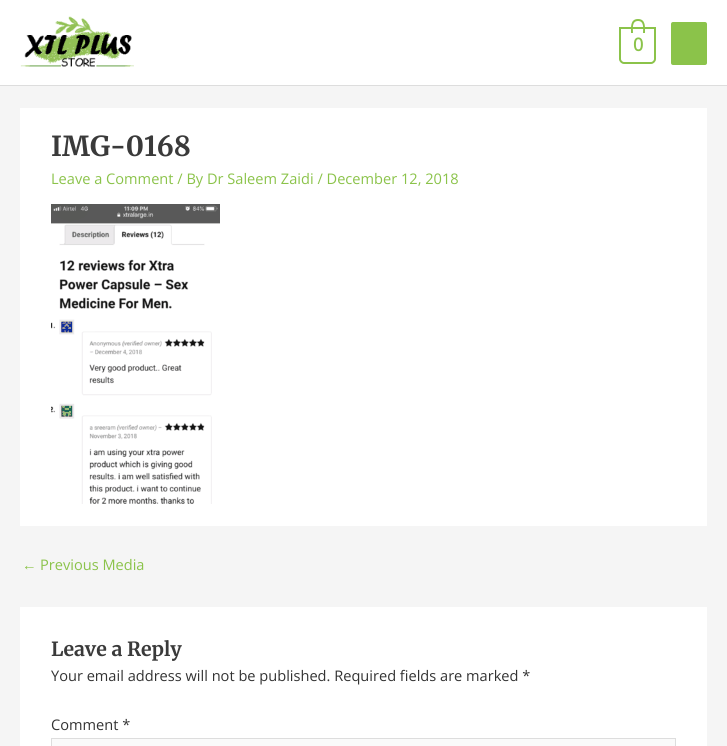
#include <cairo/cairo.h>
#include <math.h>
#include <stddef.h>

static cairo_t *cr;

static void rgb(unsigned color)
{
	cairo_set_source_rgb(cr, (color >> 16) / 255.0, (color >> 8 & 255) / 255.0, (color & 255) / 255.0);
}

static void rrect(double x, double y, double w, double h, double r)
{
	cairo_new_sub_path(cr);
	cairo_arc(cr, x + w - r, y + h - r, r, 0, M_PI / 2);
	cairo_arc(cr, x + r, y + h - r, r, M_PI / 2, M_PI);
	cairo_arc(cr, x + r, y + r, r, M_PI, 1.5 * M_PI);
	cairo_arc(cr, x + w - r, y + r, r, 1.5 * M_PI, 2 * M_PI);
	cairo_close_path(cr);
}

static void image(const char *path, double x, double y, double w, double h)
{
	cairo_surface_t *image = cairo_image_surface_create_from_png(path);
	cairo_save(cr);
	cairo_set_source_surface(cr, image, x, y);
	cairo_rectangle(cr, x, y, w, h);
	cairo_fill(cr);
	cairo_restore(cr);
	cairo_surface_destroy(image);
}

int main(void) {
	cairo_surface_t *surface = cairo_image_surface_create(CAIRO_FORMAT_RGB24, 727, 746);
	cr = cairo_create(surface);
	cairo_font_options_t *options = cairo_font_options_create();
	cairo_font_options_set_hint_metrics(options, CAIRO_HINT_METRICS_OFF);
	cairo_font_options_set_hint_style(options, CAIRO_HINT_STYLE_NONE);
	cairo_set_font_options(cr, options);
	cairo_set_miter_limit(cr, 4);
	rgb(0xf5f5f5);
	cairo_paint(cr);
	rgb(0xffffff);
	cairo_rectangle(cr, 0, 0, 727, 85);
	cairo_fill(cr);
	rgb(0xdddddd);
	cairo_rectangle(cr, 0, 85, 727, 1);
	cairo_fill(cr);
	image("img/1.png", 20, 16, 114, 51);
	cairo_new_path(cr);
	cairo_move_to(cr, 620, 28);
	cairo_line_to(cr, 655, 28);
	cairo_line_to(cr, 655, 59);
	cairo_curve_to(cr, 655, 61, 653, 63, 651, 63);
	cairo_line_to(cr, 624, 63);
	cairo_curve_to(cr, 622, 63, 620, 61, 620, 59);
	cairo_close_path(cr);
	rgb(0x8bc34a);
	cairo_stroke(cr);
	cairo_set_fill_rule(cr, CAIRO_FILL_RULE_EVEN_ODD);
	cairo_new_path(cr);
	cairo_move_to(cr, 638, 19);
	cairo_curve_to(cr, 646, 19, 645, 27.5, 645, 33);
	cairo_line_to(cr, 631, 33);
	cairo_curve_to(cr, 631, 27.5, 630, 19, 638, 19);
	cairo_close_path(cr);
	cairo_move_to(cr, 638, 21);
	cairo_curve_to(cr, 644.5, 21, 643, 29, 643, 33);
	cairo_line_to(cr, 633, 33);
	cairo_curve_to(cr, 633, 29, 631.5, 21, 638, 21);
	cairo_close_path(cr);
	cairo_fill(cr);
	rrect(671, 22, 36, 43, 2);
	cairo_fill(cr);
	rgb(0xffffff);
	cairo_rectangle(cr, 20, 108, 687, 418);
	cairo_fill(cr);
	image("img/2.png", 51, 204, 169, 300);
	cairo_rectangle(cr, 20, 607, 687, 139);
	cairo_fill(cr);
	rgb(0xfafafa);
	cairo_rectangle(cr, 51.5, 738.5, 624, 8);
	cairo_fill_preserve(cr);
	rgb(0xdddddd);
	cairo_set_line_width(cr, 1);
	cairo_stroke(cr);
	cairo_select_font_face(cr, "Open Sans", CAIRO_FONT_SLANT_NORMAL, CAIRO_FONT_WEIGHT_BOLD);
	cairo_set_font_size(cr, 18);
	rgb(0x8bc34a);
	cairo_move_to(cr, 633, 51);
	cairo_show_text(cr, "0");
	cairo_select_font_face(cr, "Merriweather Light", CAIRO_FONT_SLANT_NORMAL, CAIRO_FONT_WEIGHT_NORMAL);
	cairo_set_font_size(cr, 27.5);
	rgb(0x3a3a3a);
	cairo_move_to(cr, 51, 156);
	cairo_show_text(cr, "IMG-0168");
	cairo_select_font_face(cr, "Open Sans", CAIRO_FONT_SLANT_NORMAL, CAIRO_FONT_WEIGHT_NORMAL);
	cairo_set_font_size(cr, 14.6);
	rgb(0x8bc34a);
	cairo_move_to(cr, 51, 184);
	cairo_show_text(cr, "Leave a Comment / By Dr Saleem Zaidi / December 12, 2018");
	cairo_select_font_face(cr, "Liberation Sans", CAIRO_FONT_SLANT_NORMAL, CAIRO_FONT_WEIGHT_NORMAL);
	cairo_move_to(cr, 22, 570);
	cairo_show_text(cr, "←");
	cairo_select_font_face(cr, "Open Sans", CAIRO_FONT_SLANT_NORMAL, CAIRO_FONT_WEIGHT_NORMAL);
	cairo_move_to(cr, 40, 570);
	cairo_show_text(cr, "Previous Media");
	cairo_select_font_face(cr, "Merriweather Light", CAIRO_FONT_SLANT_NORMAL, CAIRO_FONT_WEIGHT_NORMAL);
	cairo_set_font_size(cr, 19.5);
	rgb(0x3a3a3a);
	cairo_move_to(cr, 51, 656);
	cairo_show_text(cr, "Leave a Reply");
	cairo_select_font_face(cr, "Open Sans", CAIRO_FONT_SLANT_NORMAL, CAIRO_FONT_WEIGHT_NORMAL);
	cairo_set_font_size(cr, 14.6);
	rgb(0x333333);
	cairo_move_to(cr, 51, 681);
	cairo_show_text(cr, "Your email address will not be published. Required fields are marked *");
	cairo_move_to(cr, 51, 730);
	cairo_show_text(cr, "Comment *");
	cairo_surface_write_to_png(surface, "page.png");
	cairo_font_options_destroy(options);
	cairo_destroy(cr);
	cairo_surface_destroy(surface);
	return 0;
}
